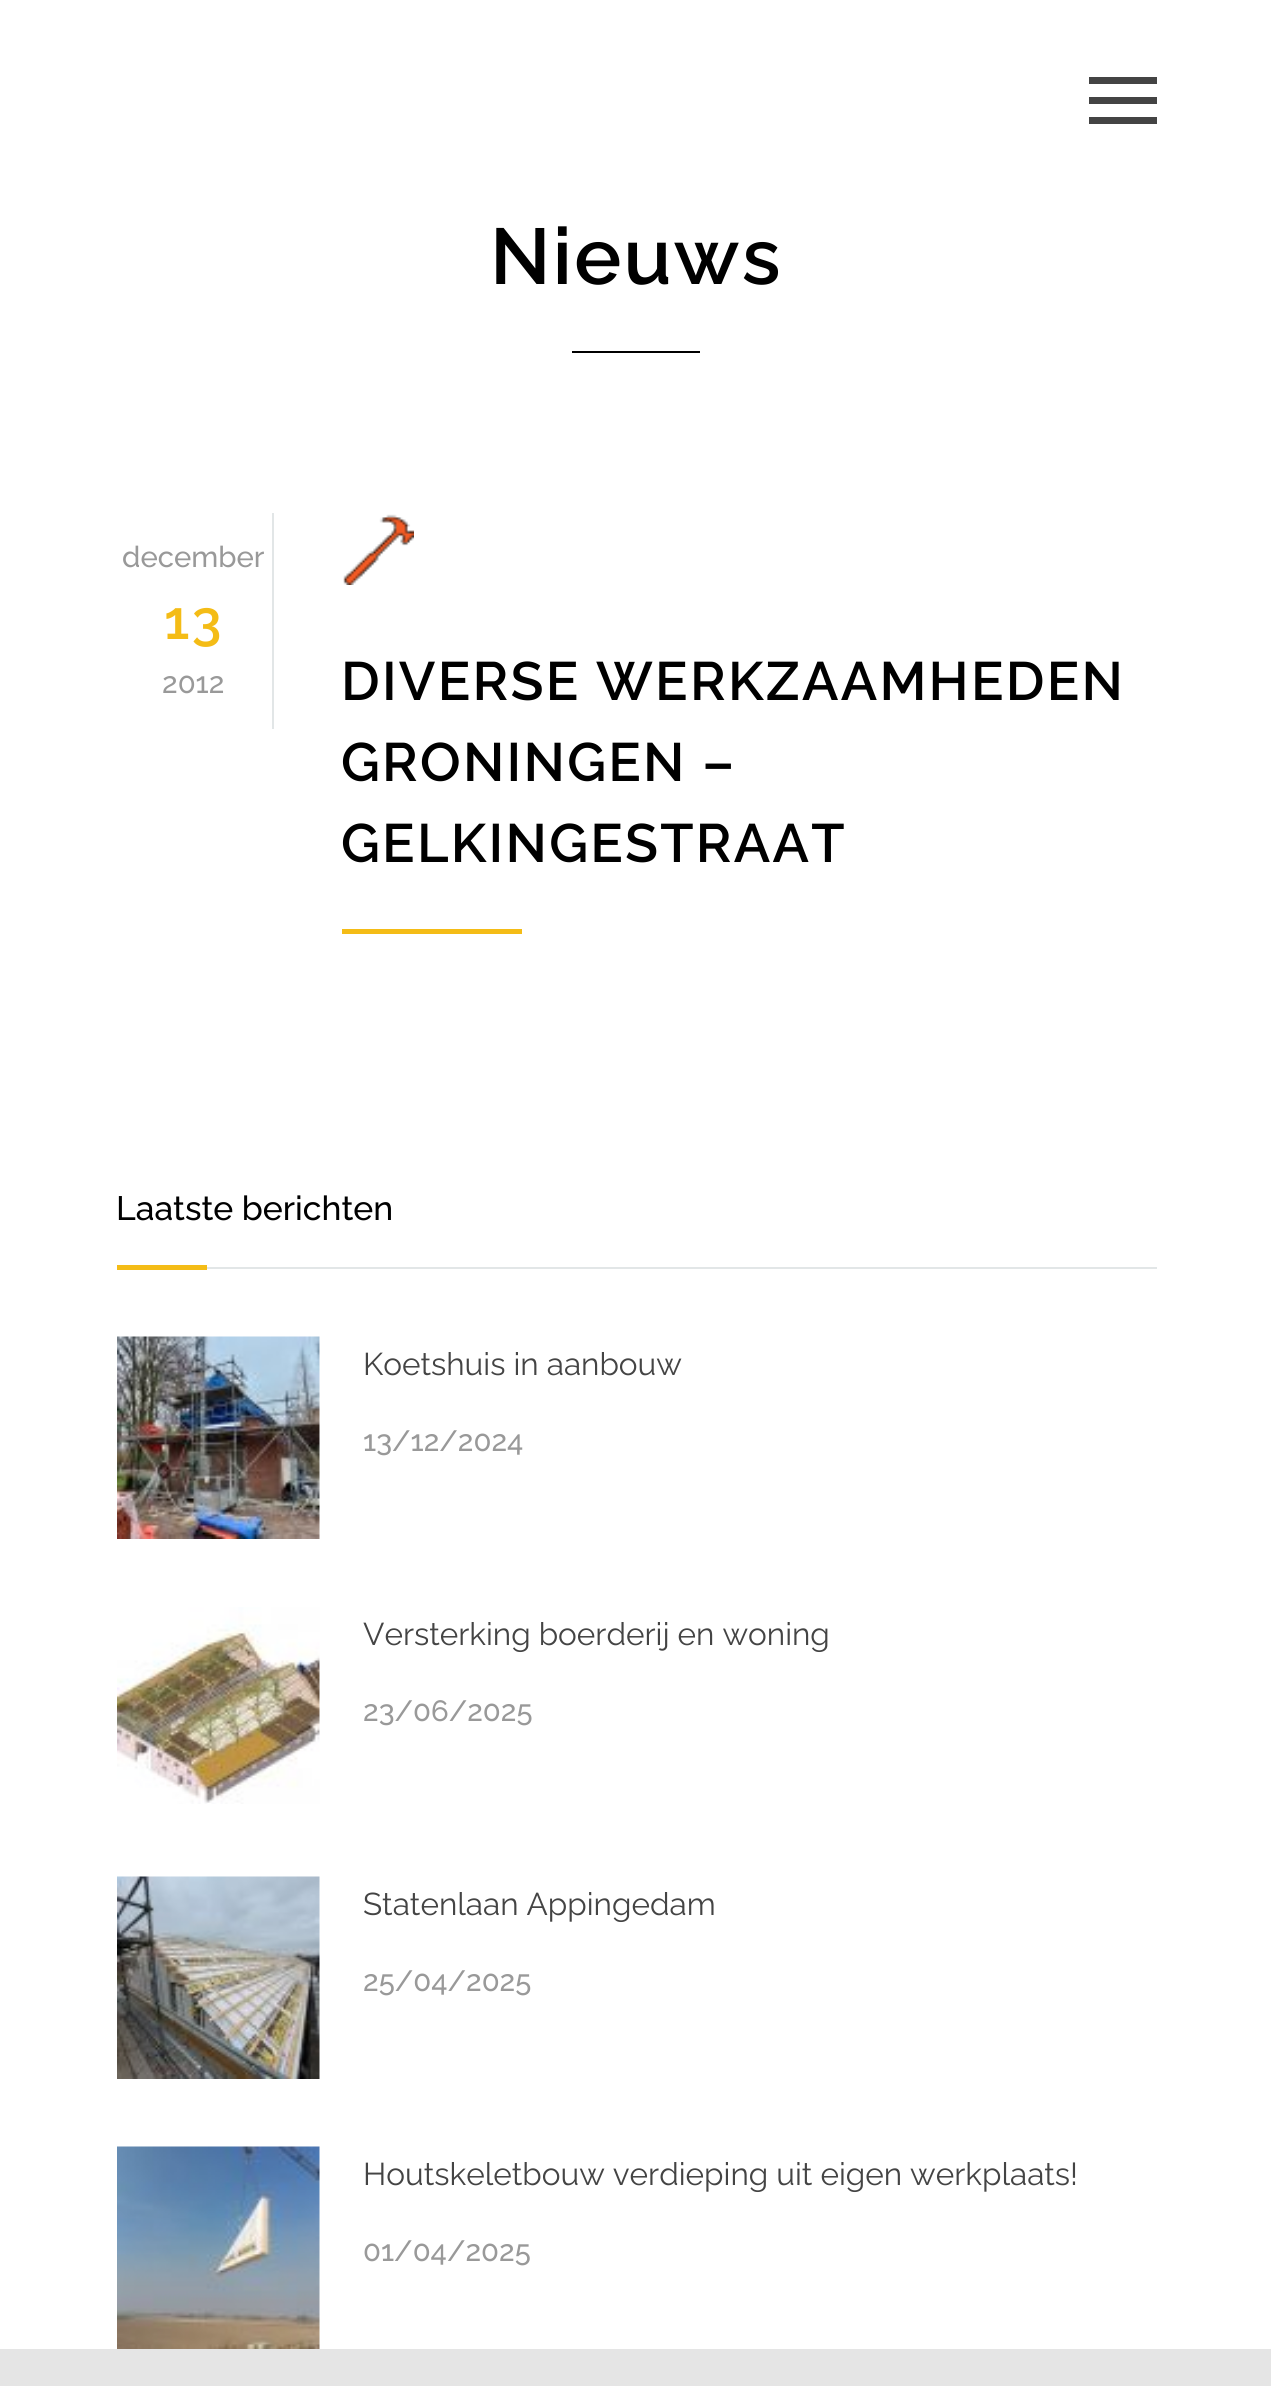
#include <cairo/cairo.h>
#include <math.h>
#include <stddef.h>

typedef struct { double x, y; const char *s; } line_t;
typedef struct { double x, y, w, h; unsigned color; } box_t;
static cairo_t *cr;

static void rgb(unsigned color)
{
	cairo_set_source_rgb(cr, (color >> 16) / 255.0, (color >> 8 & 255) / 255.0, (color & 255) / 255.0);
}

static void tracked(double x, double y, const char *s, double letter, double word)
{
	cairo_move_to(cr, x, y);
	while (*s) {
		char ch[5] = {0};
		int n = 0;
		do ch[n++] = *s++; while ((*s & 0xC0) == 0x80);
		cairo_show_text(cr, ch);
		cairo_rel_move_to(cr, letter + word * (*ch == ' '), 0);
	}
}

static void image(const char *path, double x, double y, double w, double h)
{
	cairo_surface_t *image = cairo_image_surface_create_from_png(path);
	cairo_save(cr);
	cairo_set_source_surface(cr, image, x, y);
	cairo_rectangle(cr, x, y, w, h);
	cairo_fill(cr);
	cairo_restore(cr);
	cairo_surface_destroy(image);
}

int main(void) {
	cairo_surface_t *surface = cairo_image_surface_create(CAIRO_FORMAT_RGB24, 1271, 2386);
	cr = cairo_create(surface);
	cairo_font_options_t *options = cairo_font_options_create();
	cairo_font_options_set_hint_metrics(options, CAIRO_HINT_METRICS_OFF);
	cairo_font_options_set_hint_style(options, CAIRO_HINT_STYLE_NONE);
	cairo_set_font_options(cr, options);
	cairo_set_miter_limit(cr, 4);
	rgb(0xe5e5e5);
	cairo_paint(cr);
	{
		static const box_t items[] = {
			{0, 0, 1271, 2349, 0xffffff},
			{1089, 77, 68, 7, 0x444444},
			{1089, 97, 68, 7, 0x444444},
			{1089, 117, 68, 7, 0x444444},
			{572, 351, 128, 2, 0x000000},
			{272, 513, 2, 216, 0xe2e6e7},
		};
		for (size_t i = 0; i < sizeof items / sizeof *items; i++) {
			rgb(items[i].color);
			cairo_rectangle(cr, items[i].x, items[i].y, items[i].w, items[i].h);
			cairo_fill(cr);
		}
	}
	image("img/1.png", 343, 514, 71, 71);
	{
		static const box_t items[] = {
			{342, 929, 180, 5, 0xf4bc16},
			{207, 1267, 950, 2, 0xe2e6e7},
			{117, 1265, 90, 5, 0xf4bc16},
		};
		for (size_t i = 0; i < sizeof items / sizeof *items; i++) {
			rgb(items[i].color);
			cairo_rectangle(cr, items[i].x, items[i].y, items[i].w, items[i].h);
			cairo_fill(cr);
		}
	}
	image("img/2.png", 117, 1336, 203, 203);
	image("img/3.png", 117, 1607, 203, 197);
	image("img/4.png", 117, 1876, 203, 203);
	image("img/5.png", 117, 2146, 203, 203);
	cairo_select_font_face(cr, "Raleway SemiBold", CAIRO_FONT_SLANT_NORMAL, CAIRO_FONT_WEIGHT_NORMAL);
	cairo_set_font_size(cr, 79);
	rgb(0x000000);
	tracked(490, 284, "Nieuws", 2.25, 0);
	cairo_select_font_face(cr, "Raleway Medium", CAIRO_FONT_SLANT_NORMAL, CAIRO_FONT_WEIGHT_NORMAL);
	cairo_set_font_size(cr, 29.25);
	rgb(0x999999);
	cairo_move_to(cr, 122, 567);
	cairo_show_text(cr, "december");
	cairo_select_font_face(cr, "Raleway SemiBold", CAIRO_FONT_SLANT_NORMAL, CAIRO_FONT_WEIGHT_NORMAL);
	cairo_set_font_size(cr, 54);
	rgb(0xf4bc16);
	tracked(164, 639, "13", 2.25, 0);
	cairo_select_font_face(cr, "Raleway Medium", CAIRO_FONT_SLANT_NORMAL, CAIRO_FONT_WEIGHT_NORMAL);
	cairo_set_font_size(cr, 29.25);
	rgb(0x999999);
	cairo_move_to(cr, 162, 693);
	cairo_show_text(cr, "2012");
	cairo_select_font_face(cr, "Raleway SemiBold", CAIRO_FONT_SLANT_NORMAL, CAIRO_FONT_WEIGHT_NORMAL);
	cairo_set_font_size(cr, 54);
	rgb(0x000000);
	{
		static const line_t items[] = {
			{341, 700, "DIVERSE WERKZAAMHEDEN"},
			{341, 781, "GRONINGEN –"},
			{341, 862, "GELKINGESTRAAT"},
		};
		for (size_t i = 0; i < sizeof items / sizeof *items; i++) {
			tracked(items[i].x, items[i].y, items[i].s, 2.25, 0);
		}
	}
	cairo_select_font_face(cr, "Raleway Medium", CAIRO_FONT_SLANT_NORMAL, CAIRO_FONT_WEIGHT_NORMAL);
	cairo_set_font_size(cr, 33.75);
	cairo_move_to(cr, 116, 1220);
	cairo_show_text(cr, "Laatste berichten");
	cairo_select_font_face(cr, "Raleway", CAIRO_FONT_SLANT_NORMAL, CAIRO_FONT_WEIGHT_NORMAL);
	cairo_set_font_size(cr, 31.5);
	rgb(0x444444);
	cairo_move_to(cr, 363, 1375);
	cairo_show_text(cr, "Koetshuis in aanbouw");
	cairo_select_font_face(cr, "Raleway Medium", CAIRO_FONT_SLANT_NORMAL, CAIRO_FONT_WEIGHT_NORMAL);
	cairo_set_font_size(cr, 29.25);
	rgb(0x999999);
	cairo_move_to(cr, 363, 1451);
	cairo_show_text(cr, "13/12/2024");
	cairo_select_font_face(cr, "Raleway", CAIRO_FONT_SLANT_NORMAL, CAIRO_FONT_WEIGHT_NORMAL);
	cairo_set_font_size(cr, 31.5);
	rgb(0x444444);
	cairo_move_to(cr, 363, 1645);
	cairo_show_text(cr, "Versterking boerderij en woning");
	cairo_select_font_face(cr, "Raleway Medium", CAIRO_FONT_SLANT_NORMAL, CAIRO_FONT_WEIGHT_NORMAL);
	cairo_set_font_size(cr, 29.25);
	rgb(0x999999);
	cairo_move_to(cr, 363, 1721);
	cairo_show_text(cr, "23/06/2025");
	cairo_select_font_face(cr, "Raleway", CAIRO_FONT_SLANT_NORMAL, CAIRO_FONT_WEIGHT_NORMAL);
	cairo_set_font_size(cr, 31.5);
	rgb(0x444444);
	cairo_move_to(cr, 363, 1915);
	cairo_show_text(cr, "Statenlaan Appingedam");
	cairo_select_font_face(cr, "Raleway Medium", CAIRO_FONT_SLANT_NORMAL, CAIRO_FONT_WEIGHT_NORMAL);
	cairo_set_font_size(cr, 29.25);
	rgb(0x999999);
	cairo_move_to(cr, 363, 1991);
	cairo_show_text(cr, "25/04/2025");
	cairo_select_font_face(cr, "Raleway", CAIRO_FONT_SLANT_NORMAL, CAIRO_FONT_WEIGHT_NORMAL);
	cairo_set_font_size(cr, 31.5);
	rgb(0x444444);
	cairo_move_to(cr, 363, 2185);
	cairo_show_text(cr, "Houtskeletbouw verdieping uit eigen werkplaats!");
	cairo_select_font_face(cr, "Raleway Medium", CAIRO_FONT_SLANT_NORMAL, CAIRO_FONT_WEIGHT_NORMAL);
	cairo_set_font_size(cr, 29.25);
	rgb(0x999999);
	cairo_move_to(cr, 363, 2261);
	cairo_show_text(cr, "01/04/2025");
	cairo_surface_write_to_png(surface, "page.png");
	cairo_font_options_destroy(options);
	cairo_destroy(cr);
	cairo_surface_destroy(surface);
	return 0;
}
